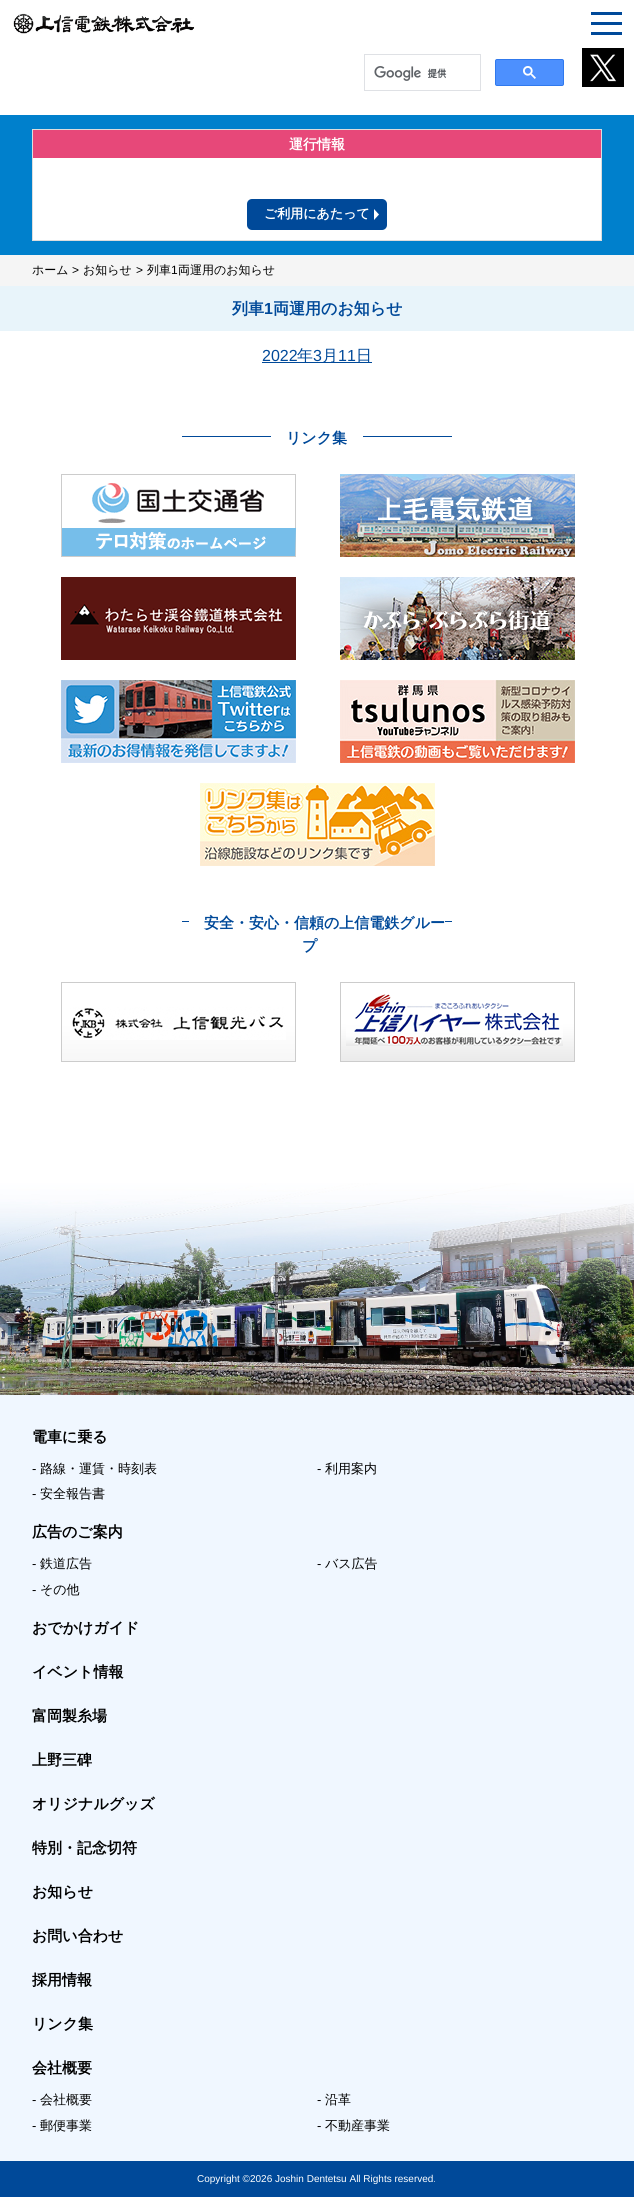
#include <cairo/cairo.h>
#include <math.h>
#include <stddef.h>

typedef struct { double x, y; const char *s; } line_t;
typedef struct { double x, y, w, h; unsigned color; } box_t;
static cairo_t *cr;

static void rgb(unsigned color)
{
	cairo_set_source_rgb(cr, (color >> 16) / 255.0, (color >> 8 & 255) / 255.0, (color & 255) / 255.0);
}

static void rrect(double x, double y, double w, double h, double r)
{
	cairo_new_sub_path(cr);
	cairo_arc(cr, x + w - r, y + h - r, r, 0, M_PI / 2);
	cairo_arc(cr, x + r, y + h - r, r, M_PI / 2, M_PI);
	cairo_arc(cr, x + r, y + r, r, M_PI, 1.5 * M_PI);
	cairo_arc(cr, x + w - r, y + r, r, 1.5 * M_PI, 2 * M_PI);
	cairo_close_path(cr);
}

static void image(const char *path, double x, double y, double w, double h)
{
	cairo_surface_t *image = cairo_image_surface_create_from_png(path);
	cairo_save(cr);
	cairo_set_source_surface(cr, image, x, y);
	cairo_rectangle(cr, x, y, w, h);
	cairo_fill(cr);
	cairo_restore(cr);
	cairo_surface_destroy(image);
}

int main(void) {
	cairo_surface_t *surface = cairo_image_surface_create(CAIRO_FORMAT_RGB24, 634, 2197);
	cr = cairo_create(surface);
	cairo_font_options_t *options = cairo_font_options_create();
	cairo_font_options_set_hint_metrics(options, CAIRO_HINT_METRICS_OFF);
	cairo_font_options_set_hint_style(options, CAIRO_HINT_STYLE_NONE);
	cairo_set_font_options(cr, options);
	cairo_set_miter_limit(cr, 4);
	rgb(0xffffff);
	cairo_paint(cr);
	{
		static const box_t items[] = {
			{591, 12, 31, 3, 0x004999},
			{591, 22, 31, 3, 0x004999},
			{591, 32, 31, 3, 0x004999},
		};
		for (size_t i = 0; i < sizeof items / sizeof *items; i++) {
			rgb(items[i].color);
			cairo_rectangle(cr, items[i].x, items[i].y, items[i].w, items[i].h);
			cairo_fill(cr);
		}
	}
	image("img/1.png", 13, 13, 182, 21);
	cairo_rectangle(cr, 364.5, 54.5, 116, 36);
	rgb(0xdfe1e5);
	cairo_set_line_width(cr, 1);
	cairo_stroke(cr);
	image("img/2.png", 374, 66, 73, 15);
	rgb(0x4d90fe);
	rrect(495.5, 59.5, 68, 26, 1.5);
	cairo_fill_preserve(cr);
	rgb(0x3079ed);
	cairo_stroke(cr);
	image("img/3.png", 523, 66, 13, 13);
	image("img/4.png", 582, 48, 42, 39);
	rgb(0x0080cc);
	cairo_rectangle(cr, 0, 115, 634, 140);
	cairo_fill(cr);
	cairo_rectangle(cr, 32.5, 129.5, 569, 111);
	rgb(0xdddddd);
	cairo_stroke(cr);
	rgb(0xe74879);
	cairo_rectangle(cr, 33, 130, 568, 28);
	cairo_fill(cr);
	rgb(0xffffff);
	cairo_rectangle(cr, 33, 158, 568, 82);
	cairo_fill(cr);
	rgb(0x004999);
	rrect(247, 199, 140, 31, 5);
	cairo_fill(cr);
	image("img/5.png", 374, 209, 5, 11);
	{
		static const box_t items[] = {
			{0, 255, 634, 31, 0xf5f5f5},
			{0, 286, 634, 45, 0xe8f4fa},
			{262, 362, 110, 1, 0x004999},
			{182, 436, 270, 1, 0x004999},
			{271, 436, 92, 1, 0xffffff},
		};
		for (size_t i = 0; i < sizeof items / sizeof *items; i++) {
			rgb(items[i].color);
			cairo_rectangle(cr, items[i].x, items[i].y, items[i].w, items[i].h);
			cairo_fill(cr);
		}
	}
	image("img/6.png", 61, 474, 235, 83);
	image("img/7.png", 340, 474, 235, 83);
	image("img/8.png", 61, 577, 235, 83);
	image("img/9.png", 340, 577, 235, 83);
	image("img/10.png", 61, 680, 235, 83);
	image("img/11.png", 340, 680, 235, 83);
	image("img/12.png", 200, 783, 235, 83);
	rgb(0x004999);
	cairo_rectangle(cr, 182, 921, 270, 1);
	cairo_fill(cr);
	rgb(0xffffff);
	cairo_rectangle(cr, 189, 921, 256, 1);
	cairo_fill(cr);
	image("img/13.png", 61, 982, 235, 80);
	image("img/14.png", 340, 982, 235, 80);
	rgb(0xf0f7ff);
	cairo_rectangle(cr, 0, 1395, 634, 766);
	cairo_fill(cr);
	image("img/15.png", 0, 1183, 634, 212);
	rgb(0x004999);
	cairo_rectangle(cr, 0, 2161, 634, 36);
	cairo_fill(cr);
	cairo_select_font_face(cr, "WenQuanYi Zen Hei", CAIRO_FONT_SLANT_NORMAL, CAIRO_FONT_WEIGHT_BOLD);
	cairo_set_font_size(cr, 14);
	rgb(0xffffff);
	cairo_move_to(cr, 289, 149);
	cairo_show_text(cr, "運行情報");
	cairo_set_font_size(cr, 13);
	cairo_move_to(cr, 264, 218);
	cairo_show_text(cr, "ご利用にあたって");
	cairo_select_font_face(cr, "WenQuanYi Zen Hei Medium", CAIRO_FONT_SLANT_NORMAL, CAIRO_FONT_WEIGHT_NORMAL);
	cairo_set_font_size(cr, 12);
	rgb(0x000000);
	cairo_move_to(cr, 32, 274);
	cairo_show_text(cr, "ホーム");
	cairo_select_font_face(cr, "Liberation Sans", CAIRO_FONT_SLANT_NORMAL, CAIRO_FONT_WEIGHT_NORMAL);
	cairo_move_to(cr, 72, 274);
	cairo_show_text(cr, ">");
	cairo_select_font_face(cr, "WenQuanYi Zen Hei Medium", CAIRO_FONT_SLANT_NORMAL, CAIRO_FONT_WEIGHT_NORMAL);
	cairo_move_to(cr, 83, 274);
	cairo_show_text(cr, "お知らせ");
	cairo_select_font_face(cr, "Liberation Sans", CAIRO_FONT_SLANT_NORMAL, CAIRO_FONT_WEIGHT_NORMAL);
	cairo_move_to(cr, 136, 274);
	cairo_show_text(cr, ">");
	cairo_select_font_face(cr, "WenQuanYi Zen Hei Medium", CAIRO_FONT_SLANT_NORMAL, CAIRO_FONT_WEIGHT_NORMAL);
	cairo_move_to(cr, 147, 274);
	cairo_show_text(cr, "列車");
	cairo_select_font_face(cr, "Liberation Sans", CAIRO_FONT_SLANT_NORMAL, CAIRO_FONT_WEIGHT_NORMAL);
	cairo_move_to(cr, 171, 274);
	cairo_show_text(cr, "1");
	cairo_select_font_face(cr, "WenQuanYi Zen Hei Medium", CAIRO_FONT_SLANT_NORMAL, CAIRO_FONT_WEIGHT_NORMAL);
	cairo_move_to(cr, 178, 274);
	cairo_show_text(cr, "両運用のお知らせ");
	cairo_select_font_face(cr, "WenQuanYi Zen Hei", CAIRO_FONT_SLANT_NORMAL, CAIRO_FONT_WEIGHT_BOLD);
	cairo_set_font_size(cr, 16);
	rgb(0x004999);
	cairo_move_to(cr, 232, 314);
	cairo_show_text(cr, "列車");
	cairo_select_font_face(cr, "Liberation Sans", CAIRO_FONT_SLANT_NORMAL, CAIRO_FONT_WEIGHT_BOLD);
	cairo_move_to(cr, 264, 314);
	cairo_show_text(cr, "1");
	cairo_select_font_face(cr, "WenQuanYi Zen Hei", CAIRO_FONT_SLANT_NORMAL, CAIRO_FONT_WEIGHT_BOLD);
	cairo_move_to(cr, 273, 314);
	cairo_show_text(cr, "両運用のお知らせ");
	cairo_select_font_face(cr, "Liberation Sans", CAIRO_FONT_SLANT_NORMAL, CAIRO_FONT_WEIGHT_NORMAL);
	cairo_move_to(cr, 262, 361);
	cairo_show_text(cr, "2022");
	cairo_select_font_face(cr, "WenQuanYi Zen Hei Medium", CAIRO_FONT_SLANT_NORMAL, CAIRO_FONT_WEIGHT_NORMAL);
	cairo_move_to(cr, 297, 361);
	cairo_show_text(cr, "年");
	cairo_select_font_face(cr, "Liberation Sans", CAIRO_FONT_SLANT_NORMAL, CAIRO_FONT_WEIGHT_NORMAL);
	cairo_move_to(cr, 313, 361);
	cairo_show_text(cr, "3");
	cairo_select_font_face(cr, "WenQuanYi Zen Hei Medium", CAIRO_FONT_SLANT_NORMAL, CAIRO_FONT_WEIGHT_NORMAL);
	cairo_move_to(cr, 322, 361);
	cairo_show_text(cr, "月");
	cairo_select_font_face(cr, "Liberation Sans", CAIRO_FONT_SLANT_NORMAL, CAIRO_FONT_WEIGHT_NORMAL);
	cairo_move_to(cr, 338, 361);
	cairo_show_text(cr, "11");
	cairo_select_font_face(cr, "WenQuanYi Zen Hei Medium", CAIRO_FONT_SLANT_NORMAL, CAIRO_FONT_WEIGHT_NORMAL);
	cairo_move_to(cr, 356, 361);
	cairo_show_text(cr, "日");
	cairo_select_font_face(cr, "WenQuanYi Zen Hei", CAIRO_FONT_SLANT_NORMAL, CAIRO_FONT_WEIGHT_BOLD);
	cairo_set_font_size(cr, 15);
	{
		static const line_t items[] = {
			{286, 443, "リンク集"},
			{204, 928, "安全・安心・信頼の上信電鉄グルー"},
			{302, 951, "プ"},
		};
		for (size_t i = 0; i < sizeof items / sizeof *items; i++) {
			cairo_move_to(cr, items[i].x, items[i].y);
			cairo_show_text(cr, items[i].s);
		}
	}
	rgb(0x000000);
	cairo_move_to(cr, 32, 1442);
	cairo_show_text(cr, "電車に乗る");
	cairo_select_font_face(cr, "Liberation Sans", CAIRO_FONT_SLANT_NORMAL, CAIRO_FONT_WEIGHT_NORMAL);
	cairo_set_font_size(cr, 13);
	cairo_move_to(cr, 32, 1473);
	cairo_show_text(cr, "-");
	cairo_select_font_face(cr, "WenQuanYi Zen Hei Medium", CAIRO_FONT_SLANT_NORMAL, CAIRO_FONT_WEIGHT_NORMAL);
	cairo_move_to(cr, 40, 1473);
	cairo_show_text(cr, "路線・運賃・時刻表");
	cairo_select_font_face(cr, "Liberation Sans", CAIRO_FONT_SLANT_NORMAL, CAIRO_FONT_WEIGHT_NORMAL);
	cairo_move_to(cr, 317, 1473);
	cairo_show_text(cr, "-");
	cairo_select_font_face(cr, "WenQuanYi Zen Hei Medium", CAIRO_FONT_SLANT_NORMAL, CAIRO_FONT_WEIGHT_NORMAL);
	cairo_move_to(cr, 325, 1473);
	cairo_show_text(cr, "利用案内");
	cairo_select_font_face(cr, "Liberation Sans", CAIRO_FONT_SLANT_NORMAL, CAIRO_FONT_WEIGHT_NORMAL);
	cairo_move_to(cr, 32, 1498);
	cairo_show_text(cr, "-");
	cairo_select_font_face(cr, "WenQuanYi Zen Hei Medium", CAIRO_FONT_SLANT_NORMAL, CAIRO_FONT_WEIGHT_NORMAL);
	cairo_move_to(cr, 40, 1498);
	cairo_show_text(cr, "安全報告書");
	cairo_select_font_face(cr, "WenQuanYi Zen Hei", CAIRO_FONT_SLANT_NORMAL, CAIRO_FONT_WEIGHT_BOLD);
	cairo_set_font_size(cr, 15);
	cairo_move_to(cr, 32, 1537);
	cairo_show_text(cr, "広告のご案内");
	cairo_select_font_face(cr, "Liberation Sans", CAIRO_FONT_SLANT_NORMAL, CAIRO_FONT_WEIGHT_NORMAL);
	cairo_set_font_size(cr, 13);
	cairo_move_to(cr, 32, 1568);
	cairo_show_text(cr, "-");
	cairo_select_font_face(cr, "WenQuanYi Zen Hei Medium", CAIRO_FONT_SLANT_NORMAL, CAIRO_FONT_WEIGHT_NORMAL);
	cairo_move_to(cr, 40, 1568);
	cairo_show_text(cr, "鉄道広告");
	cairo_select_font_face(cr, "Liberation Sans", CAIRO_FONT_SLANT_NORMAL, CAIRO_FONT_WEIGHT_NORMAL);
	cairo_move_to(cr, 317, 1568);
	cairo_show_text(cr, "-");
	cairo_select_font_face(cr, "WenQuanYi Zen Hei Medium", CAIRO_FONT_SLANT_NORMAL, CAIRO_FONT_WEIGHT_NORMAL);
	cairo_move_to(cr, 325, 1568);
	cairo_show_text(cr, "バス広告");
	cairo_select_font_face(cr, "Liberation Sans", CAIRO_FONT_SLANT_NORMAL, CAIRO_FONT_WEIGHT_NORMAL);
	cairo_move_to(cr, 32, 1594);
	cairo_show_text(cr, "-");
	cairo_select_font_face(cr, "WenQuanYi Zen Hei Medium", CAIRO_FONT_SLANT_NORMAL, CAIRO_FONT_WEIGHT_NORMAL);
	cairo_move_to(cr, 40, 1594);
	cairo_show_text(cr, "その他");
	cairo_select_font_face(cr, "WenQuanYi Zen Hei", CAIRO_FONT_SLANT_NORMAL, CAIRO_FONT_WEIGHT_BOLD);
	cairo_set_font_size(cr, 15);
	{
		static const line_t items[] = {
			{32, 1633, "おでかけガイド"},
			{32, 1677, "イベント情報"},
			{32, 1721, "富岡製糸場"},
			{32, 1765, "上野三碑"},
			{32, 1809, "オリジナルグッズ"},
			{32, 1853, "特別・記念切符"},
			{32, 1897, "お知らせ"},
			{32, 1941, "お問い合わせ"},
			{32, 1985, "採用情報"},
			{32, 2029, "リンク集"},
			{32, 2073, "会社概要"},
		};
		for (size_t i = 0; i < sizeof items / sizeof *items; i++) {
			cairo_move_to(cr, items[i].x, items[i].y);
			cairo_show_text(cr, items[i].s);
		}
	}
	cairo_select_font_face(cr, "Liberation Sans", CAIRO_FONT_SLANT_NORMAL, CAIRO_FONT_WEIGHT_NORMAL);
	cairo_set_font_size(cr, 13);
	cairo_move_to(cr, 32, 2104);
	cairo_show_text(cr, "-");
	cairo_select_font_face(cr, "WenQuanYi Zen Hei Medium", CAIRO_FONT_SLANT_NORMAL, CAIRO_FONT_WEIGHT_NORMAL);
	cairo_move_to(cr, 40, 2104);
	cairo_show_text(cr, "会社概要");
	cairo_select_font_face(cr, "Liberation Sans", CAIRO_FONT_SLANT_NORMAL, CAIRO_FONT_WEIGHT_NORMAL);
	cairo_move_to(cr, 317, 2104);
	cairo_show_text(cr, "-");
	cairo_select_font_face(cr, "WenQuanYi Zen Hei Medium", CAIRO_FONT_SLANT_NORMAL, CAIRO_FONT_WEIGHT_NORMAL);
	cairo_move_to(cr, 325, 2104);
	cairo_show_text(cr, "沿革");
	cairo_select_font_face(cr, "Liberation Sans", CAIRO_FONT_SLANT_NORMAL, CAIRO_FONT_WEIGHT_NORMAL);
	cairo_move_to(cr, 32, 2130);
	cairo_show_text(cr, "-");
	cairo_select_font_face(cr, "WenQuanYi Zen Hei Medium", CAIRO_FONT_SLANT_NORMAL, CAIRO_FONT_WEIGHT_NORMAL);
	cairo_move_to(cr, 40, 2130);
	cairo_show_text(cr, "郵便事業");
	cairo_select_font_face(cr, "Liberation Sans", CAIRO_FONT_SLANT_NORMAL, CAIRO_FONT_WEIGHT_NORMAL);
	cairo_move_to(cr, 317, 2130);
	cairo_show_text(cr, "-");
	cairo_select_font_face(cr, "WenQuanYi Zen Hei Medium", CAIRO_FONT_SLANT_NORMAL, CAIRO_FONT_WEIGHT_NORMAL);
	cairo_move_to(cr, 325, 2130);
	cairo_show_text(cr, "不動産事業");
	cairo_select_font_face(cr, "Liberation Sans", CAIRO_FONT_SLANT_NORMAL, CAIRO_FONT_WEIGHT_NORMAL);
	cairo_set_font_size(cr, 10);
	rgb(0xffffff);
	cairo_move_to(cr, 197, 2182);
	cairo_show_text(cr, "Copyright ©2026 Joshin Dentetsu All Rights reserved.");
	cairo_surface_write_to_png(surface, "page.png");
	cairo_font_options_destroy(options);
	cairo_destroy(cr);
	cairo_surface_destroy(surface);
	return 0;
}
